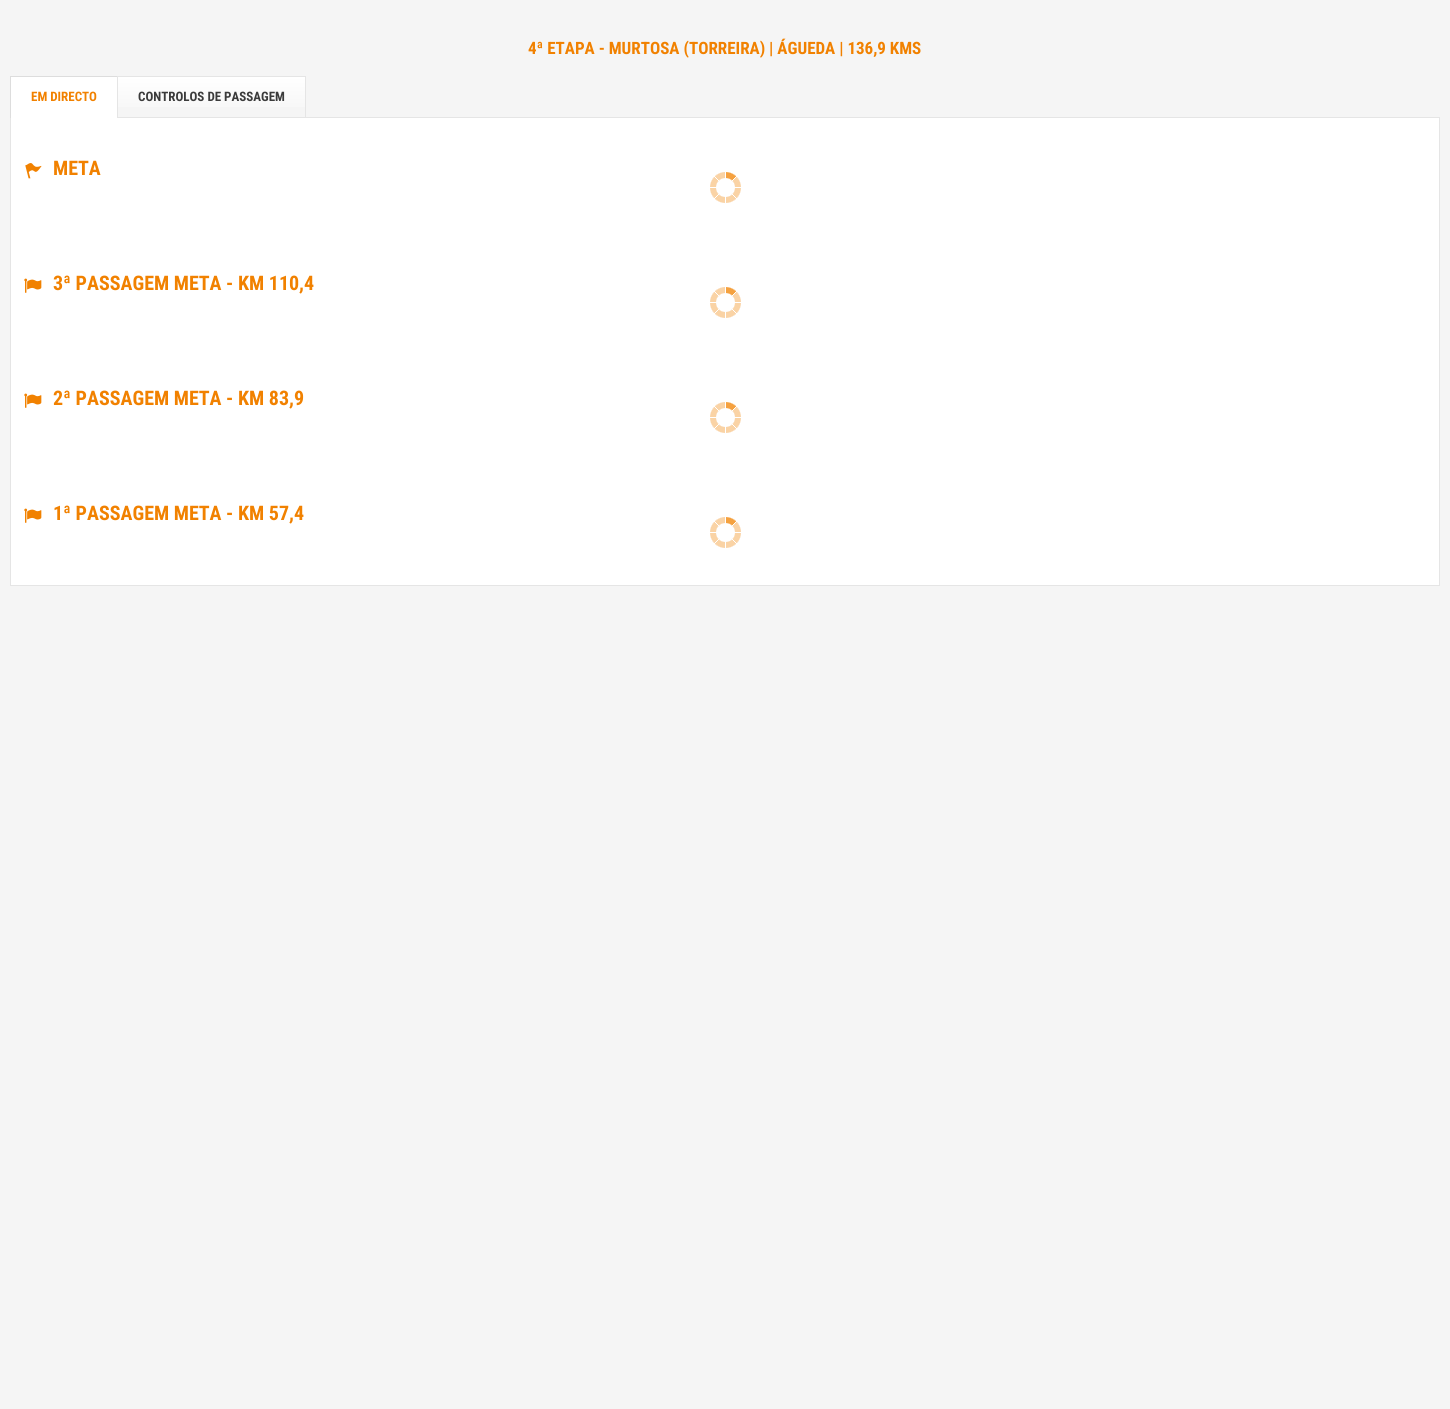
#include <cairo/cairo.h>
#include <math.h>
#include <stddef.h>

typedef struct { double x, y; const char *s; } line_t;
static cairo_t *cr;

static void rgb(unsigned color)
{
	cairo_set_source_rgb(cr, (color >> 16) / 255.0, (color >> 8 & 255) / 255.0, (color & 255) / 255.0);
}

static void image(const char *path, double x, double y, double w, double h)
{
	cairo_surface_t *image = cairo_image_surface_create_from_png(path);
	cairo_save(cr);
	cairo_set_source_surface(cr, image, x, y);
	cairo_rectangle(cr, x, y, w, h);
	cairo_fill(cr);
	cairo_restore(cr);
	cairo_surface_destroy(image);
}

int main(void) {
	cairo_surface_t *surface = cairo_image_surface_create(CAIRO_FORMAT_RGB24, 1450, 1409);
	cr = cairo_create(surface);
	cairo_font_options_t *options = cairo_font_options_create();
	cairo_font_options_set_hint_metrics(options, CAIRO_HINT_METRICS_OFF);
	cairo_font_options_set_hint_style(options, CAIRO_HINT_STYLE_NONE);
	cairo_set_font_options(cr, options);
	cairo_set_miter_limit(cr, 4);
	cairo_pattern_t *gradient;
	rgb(0xf5f5f5);
	cairo_paint(cr);
	rgb(0xffffff);
	cairo_rectangle(cr, 11, 77, 106, 40);
	cairo_fill(cr);
	rgb(0xdddddd);
	cairo_rectangle(cr, 10, 76, 108, 1);
	cairo_fill(cr);
	rgb(0xffffff);
	cairo_rectangle(cr, 10.5, 117.5, 1429, 468);
	cairo_fill_preserve(cr);
	rgb(0xe5e5e5);
	cairo_set_line_width(cr, 1);
	cairo_stroke(cr);
	rgb(0xffffff);
	cairo_rectangle(cr, 10, 117, 108, 1);
	cairo_fill(cr);
	rgb(0xdddddd);
	cairo_rectangle(cr, 10, 76, 1, 42);
	cairo_fill(cr);
	gradient = cairo_pattern_create_linear(212, 117, 212, 77);
	cairo_pattern_add_color_stop_rgba(gradient, 0, 0.961, 0.961, 0.961, 1);
	cairo_pattern_add_color_stop_rgba(gradient, 1, 1, 1, 1, 1);
	cairo_set_source(cr, gradient);
	cairo_pattern_destroy(gradient);
	cairo_rectangle(cr, 118, 77, 187, 30);
	cairo_fill(cr);
	cairo_rectangle(cr, 117.5, 76.5, 188, 41);
	rgb(0xe5e5e5);
	cairo_stroke(cr);
	image("img/1.png", 710, 172, 31, 31);
	image("img/2.png", 25, 163, 17, 16);
	image("img/1.png", 710, 287, 31, 31);
	image("img/3.png", 24, 278, 18, 15);
	image("img/1.png", 710, 402, 31, 31);
	image("img/3.png", 24, 393, 18, 15);
	image("img/1.png", 710, 517, 31, 31);
	image("img/3.png", 24, 508, 18, 15);
	cairo_select_font_face(cr, "Roboto Condensed", CAIRO_FONT_SLANT_NORMAL, CAIRO_FONT_WEIGHT_BOLD);
	cairo_set_font_size(cr, 17);
	rgb(0xf18100);
	cairo_move_to(cr, 528, 54);
	cairo_show_text(cr, "4ª ETAPA - MURTOSA (TORREIRA) | ÁGUEDA | 136,9 KMS");
	cairo_set_font_size(cr, 13);
	cairo_move_to(cr, 31, 101);
	cairo_show_text(cr, "EM DIRECTO");
	rgb(0x3b3b3b);
	cairo_move_to(cr, 138, 101);
	cairo_show_text(cr, "CONTROLOS DE PASSAGEM");
	cairo_set_font_size(cr, 20);
	rgb(0xf18100);
	{
		static const line_t items[] = {
			{53, 175, "META"},
			{53, 290, "3ª PASSAGEM META - KM 110,4"},
			{53, 405, "2ª PASSAGEM META - KM 83,9"},
			{53, 520, "1ª PASSAGEM META - KM 57,4"},
		};
		for (size_t i = 0; i < sizeof items / sizeof *items; i++) {
			cairo_move_to(cr, items[i].x, items[i].y);
			cairo_show_text(cr, items[i].s);
		}
	}
	cairo_surface_write_to_png(surface, "page.png");
	cairo_font_options_destroy(options);
	cairo_destroy(cr);
	cairo_surface_destroy(surface);
	return 0;
}
